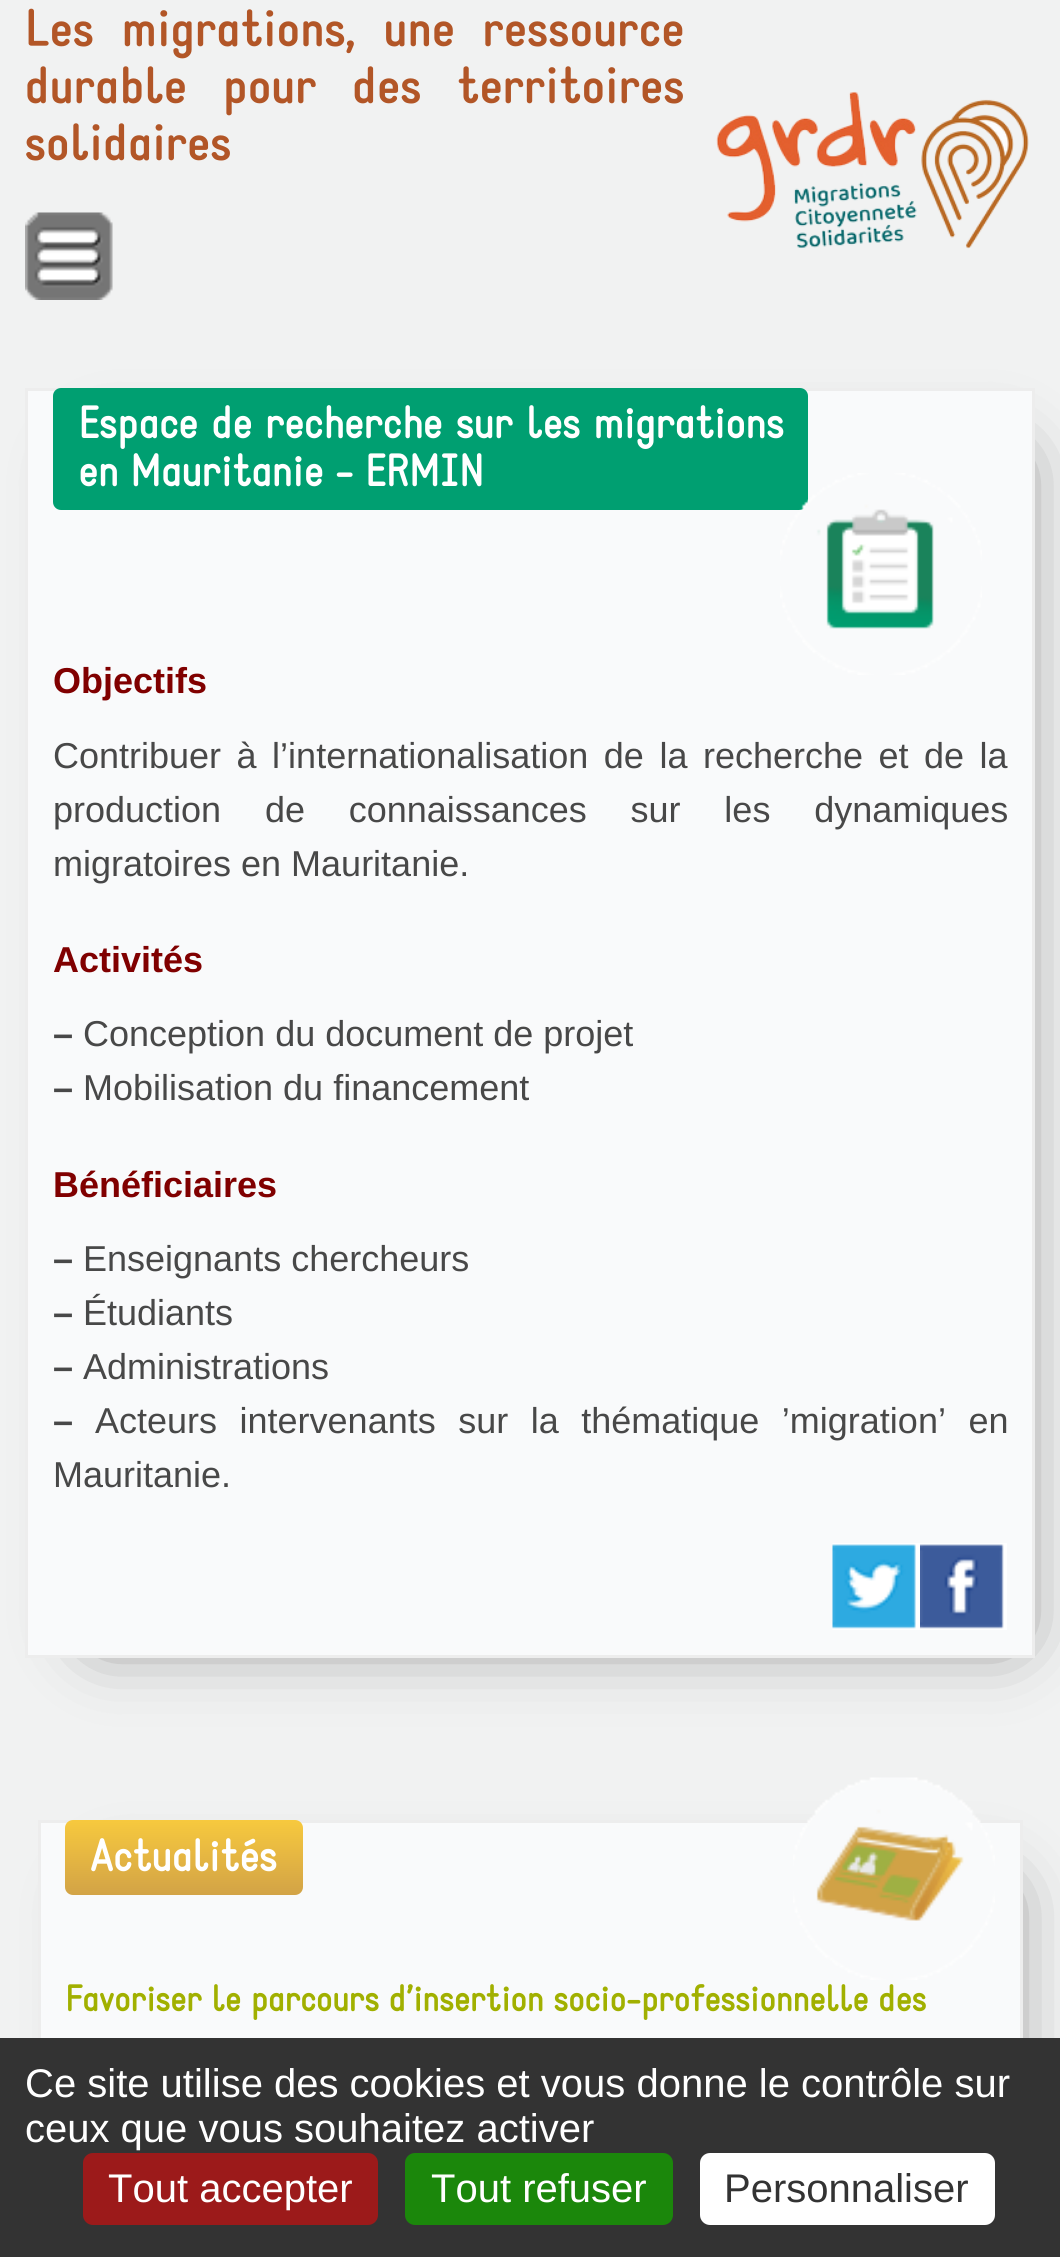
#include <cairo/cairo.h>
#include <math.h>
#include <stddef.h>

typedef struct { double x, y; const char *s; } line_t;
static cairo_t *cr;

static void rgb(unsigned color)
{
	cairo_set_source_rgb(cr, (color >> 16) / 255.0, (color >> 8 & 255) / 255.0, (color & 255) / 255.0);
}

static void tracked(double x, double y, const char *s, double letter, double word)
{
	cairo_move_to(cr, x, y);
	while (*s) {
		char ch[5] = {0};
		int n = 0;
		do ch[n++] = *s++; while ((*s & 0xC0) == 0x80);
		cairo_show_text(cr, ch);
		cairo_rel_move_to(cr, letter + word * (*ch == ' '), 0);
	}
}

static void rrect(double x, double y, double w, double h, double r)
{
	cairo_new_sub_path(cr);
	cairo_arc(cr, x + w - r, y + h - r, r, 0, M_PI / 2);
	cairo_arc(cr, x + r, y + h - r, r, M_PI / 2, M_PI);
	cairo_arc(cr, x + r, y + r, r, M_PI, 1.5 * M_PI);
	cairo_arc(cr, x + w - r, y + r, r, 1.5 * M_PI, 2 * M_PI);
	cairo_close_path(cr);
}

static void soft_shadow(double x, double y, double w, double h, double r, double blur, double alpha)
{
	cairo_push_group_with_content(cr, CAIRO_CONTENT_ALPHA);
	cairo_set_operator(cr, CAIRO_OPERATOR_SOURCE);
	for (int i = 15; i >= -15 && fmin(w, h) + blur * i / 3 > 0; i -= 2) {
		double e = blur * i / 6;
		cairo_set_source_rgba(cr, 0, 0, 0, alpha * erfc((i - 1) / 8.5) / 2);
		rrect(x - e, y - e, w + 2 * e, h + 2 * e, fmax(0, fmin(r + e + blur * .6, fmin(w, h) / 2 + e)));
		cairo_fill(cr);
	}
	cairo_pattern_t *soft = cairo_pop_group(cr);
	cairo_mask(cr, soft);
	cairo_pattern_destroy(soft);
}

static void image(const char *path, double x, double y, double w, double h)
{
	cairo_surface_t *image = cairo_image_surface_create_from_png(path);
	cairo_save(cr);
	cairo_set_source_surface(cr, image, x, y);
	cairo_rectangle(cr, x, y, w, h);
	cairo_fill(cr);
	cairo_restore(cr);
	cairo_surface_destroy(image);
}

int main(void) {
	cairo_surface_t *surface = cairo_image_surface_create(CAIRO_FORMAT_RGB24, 1060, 2257);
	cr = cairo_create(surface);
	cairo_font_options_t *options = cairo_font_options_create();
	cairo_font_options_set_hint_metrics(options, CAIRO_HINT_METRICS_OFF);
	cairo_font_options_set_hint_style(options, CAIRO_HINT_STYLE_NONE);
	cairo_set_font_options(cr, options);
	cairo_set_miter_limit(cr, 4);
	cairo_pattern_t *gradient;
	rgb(0xf1f2f2);
	cairo_paint(cr);
	image("img/1.png", 716, 91, 313, 158);
	image("img/2.png", 25, 212, 88, 88);
	rgb(0x656565);
	soft_shadow(100, 463, 910, 1170, 0, 37.5, 1);
	rgb(0xf9fafb);
	cairo_rectangle(cr, 26.5, 389.5, 1007, 1267);
	cairo_fill_preserve(cr);
	rgb(0xededed);
	cairo_set_line_width(cr, 3);
	cairo_stroke(cr);
	rgb(0x009f71);
	rrect(53, 388, 755, 122, 8);
	cairo_fill(cr);
	image("img/3.png", 780, 473, 202, 202);
	image("img/4.png", 832, 1543, 88, 87);
	image("img/5.png", 920, 1543, 87, 87);
	rgb(0x656565);
	soft_shadow(113, 1895, 885, 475, 0, 37.5, 1);
	rgb(0xf9fafb);
	cairo_rectangle(cr, 41, 1823, 979, 215);
	cairo_fill(cr);
	cairo_rectangle(cr, 39.5, 1821.5, 982, 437);
	rgb(0xededed);
	cairo_stroke(cr);
	gradient = cairo_pattern_create_linear(184, 1820, 184, 1895);
	cairo_pattern_add_color_stop_rgba(gradient, 0, 0.969, 0.788, 0.243, 1);
	cairo_pattern_add_color_stop_rgba(gradient, 1, 0.824, 0.639, 0.275, 1);
	cairo_set_source(cr, gradient);
	cairo_pattern_destroy(gradient);
	rrect(65, 1820, 238, 75, 8);
	cairo_fill(cr);
	image("img/6.png", 793, 1777, 202, 203);
	rgb(0x333333);
	cairo_rectangle(cr, 0, 2038, 1060, 219);
	cairo_fill(cr);
	rgb(0x9c1a1a);
	rrect(83, 2153, 295, 72, 10);
	cairo_fill(cr);
	rgb(0x1b870b);
	rrect(405, 2153, 268, 72, 10);
	cairo_fill(cr);
	rgb(0xffffff);
	rrect(700, 2153, 295, 72, 10);
	cairo_fill(cr);
	cairo_select_font_face(cr, "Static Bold", CAIRO_FONT_SLANT_NORMAL, CAIRO_FONT_WEIGHT_BOLD);
	cairo_set_font_size(cr, 52);
	rgb(0xb25627);
	tracked(25, 46, "Les migrations, une ressource", 0, 16);
	tracked(25, 103, "durable pour des territoires", 0, 24);
	cairo_move_to(cr, 25, 160);
	cairo_show_text(cr, "solidaires");
	cairo_select_font_face(cr, "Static", CAIRO_FONT_SLANT_NORMAL, CAIRO_FONT_WEIGHT_BOLD);
	cairo_set_font_size(cr, 44);
	rgb(0xffffff);
	tracked(78, 438, "Espace de recherche sur les migrations", 0, 1.5);
	cairo_move_to(cr, 78, 486);
	cairo_show_text(cr, "en Mauritanie - ERMIN");
	cairo_select_font_face(cr, "Liberation Sans", CAIRO_FONT_SLANT_NORMAL, CAIRO_FONT_WEIGHT_BOLD);
	cairo_set_font_size(cr, 36);
	rgb(0x800000);
	cairo_move_to(cr, 53, 693);
	cairo_show_text(cr, "Objectifs");
	cairo_select_font_face(cr, "Liberation Sans", CAIRO_FONT_SLANT_NORMAL, CAIRO_FONT_WEIGHT_NORMAL);
	rgb(0x484848);
	tracked(53, 768, "Contribuer à l’internationalisation de la recherche et de la", 0, 5.5);
	tracked(53, 822, "production de connaissances sur les dynamiques", 0, 33.75);
	cairo_move_to(cr, 53, 876);
	cairo_show_text(cr, "migratoires en Mauritanie.");
	cairo_select_font_face(cr, "Liberation Sans", CAIRO_FONT_SLANT_NORMAL, CAIRO_FONT_WEIGHT_BOLD);
	rgb(0x800000);
	cairo_move_to(cr, 53, 972);
	cairo_show_text(cr, "Activités");
	rgb(0x484848);
	cairo_move_to(cr, 53, 1046);
	cairo_show_text(cr, "–");
	cairo_select_font_face(cr, "Liberation Sans", CAIRO_FONT_SLANT_NORMAL, CAIRO_FONT_WEIGHT_NORMAL);
	cairo_move_to(cr, 83, 1046);
	cairo_show_text(cr, "Conception du document de projet");
	cairo_select_font_face(cr, "Liberation Sans", CAIRO_FONT_SLANT_NORMAL, CAIRO_FONT_WEIGHT_BOLD);
	cairo_move_to(cr, 53, 1100);
	cairo_show_text(cr, "–");
	cairo_select_font_face(cr, "Liberation Sans", CAIRO_FONT_SLANT_NORMAL, CAIRO_FONT_WEIGHT_NORMAL);
	cairo_move_to(cr, 83, 1100);
	cairo_show_text(cr, "Mobilisation du financement");
	cairo_select_font_face(cr, "Liberation Sans", CAIRO_FONT_SLANT_NORMAL, CAIRO_FONT_WEIGHT_BOLD);
	rgb(0x800000);
	cairo_move_to(cr, 53, 1197);
	cairo_show_text(cr, "Bénéficiaires");
	rgb(0x484848);
	cairo_move_to(cr, 53, 1271);
	cairo_show_text(cr, "–");
	cairo_select_font_face(cr, "Liberation Sans", CAIRO_FONT_SLANT_NORMAL, CAIRO_FONT_WEIGHT_NORMAL);
	cairo_move_to(cr, 83, 1271);
	cairo_show_text(cr, "Enseignants chercheurs");
	cairo_select_font_face(cr, "Liberation Sans", CAIRO_FONT_SLANT_NORMAL, CAIRO_FONT_WEIGHT_BOLD);
	cairo_move_to(cr, 53, 1325);
	cairo_show_text(cr, "–");
	cairo_select_font_face(cr, "Liberation Sans", CAIRO_FONT_SLANT_NORMAL, CAIRO_FONT_WEIGHT_NORMAL);
	cairo_move_to(cr, 83, 1325);
	cairo_show_text(cr, "Étudiants");
	cairo_select_font_face(cr, "Liberation Sans", CAIRO_FONT_SLANT_NORMAL, CAIRO_FONT_WEIGHT_BOLD);
	cairo_move_to(cr, 53, 1379);
	cairo_show_text(cr, "–");
	cairo_select_font_face(cr, "Liberation Sans", CAIRO_FONT_SLANT_NORMAL, CAIRO_FONT_WEIGHT_NORMAL);
	cairo_move_to(cr, 83, 1379);
	cairo_show_text(cr, "Administrations");
	cairo_select_font_face(cr, "Liberation Sans", CAIRO_FONT_SLANT_NORMAL, CAIRO_FONT_WEIGHT_BOLD);
	cairo_move_to(cr, 53, 1433);
	cairo_show_text(cr, "–");
	cairo_select_font_face(cr, "Liberation Sans", CAIRO_FONT_SLANT_NORMAL, CAIRO_FONT_WEIGHT_NORMAL);
	tracked(95, 1433, "Acteurs intervenants sur la thématique ’migration’ en", 0, 12.5);
	cairo_move_to(cr, 53, 1487);
	cairo_show_text(cr, "Mauritanie.");
	cairo_select_font_face(cr, "Static", CAIRO_FONT_SLANT_NORMAL, CAIRO_FONT_WEIGHT_BOLD);
	cairo_set_font_size(cr, 44);
	rgb(0xffffff);
	cairo_move_to(cr, 90, 1871);
	cairo_show_text(cr, "Actualités");
	cairo_set_font_size(cr, 36);
	rgb(0xa1b000);
	cairo_move_to(cr, 65, 2011);
	cairo_show_text(cr, "Favoriser le parcours d’insertion socio-professionnelle des");
	cairo_select_font_face(cr, "Liberation Sans", CAIRO_FONT_SLANT_NORMAL, CAIRO_FONT_WEIGHT_NORMAL);
	cairo_set_font_size(cr, 40);
	rgb(0xffffff);
	{
		static const line_t items[] = {
			{25, 2097, "Ce site utilise des cookies et vous donne le contrôle sur"},
			{25, 2142, "ceux que vous souhaitez activer"},
			{108, 2202, "Tout accepter"},
			{431, 2202, "Tout refuser"},
		};
		for (size_t i = 0; i < sizeof items / sizeof *items; i++) {
			cairo_move_to(cr, items[i].x, items[i].y);
			cairo_show_text(cr, items[i].s);
		}
	}
	rgb(0x333333);
	cairo_move_to(cr, 724, 2202);
	cairo_show_text(cr, "Personnaliser");
	cairo_surface_write_to_png(surface, "page.png");
	cairo_font_options_destroy(options);
	cairo_destroy(cr);
	cairo_surface_destroy(surface);
	return 0;
}
